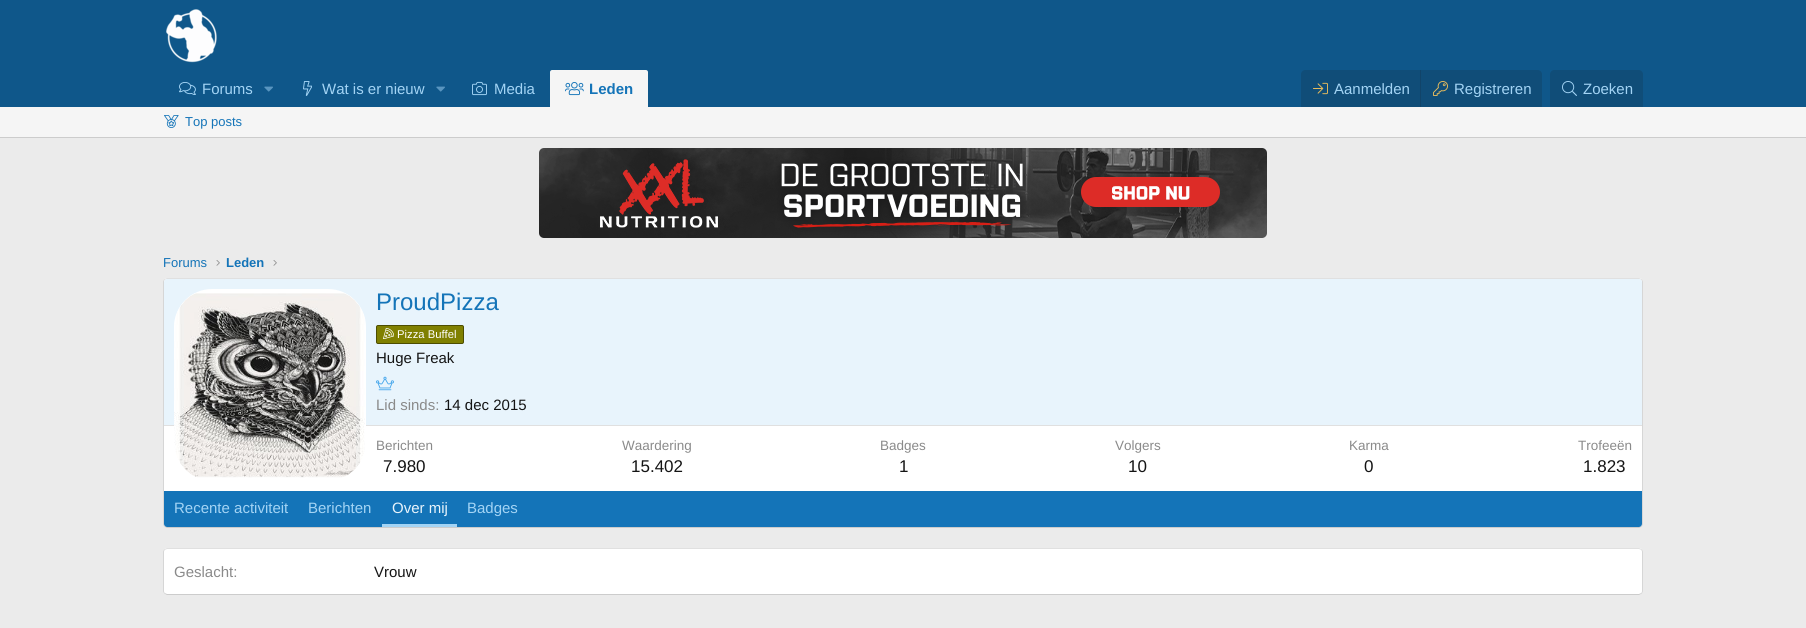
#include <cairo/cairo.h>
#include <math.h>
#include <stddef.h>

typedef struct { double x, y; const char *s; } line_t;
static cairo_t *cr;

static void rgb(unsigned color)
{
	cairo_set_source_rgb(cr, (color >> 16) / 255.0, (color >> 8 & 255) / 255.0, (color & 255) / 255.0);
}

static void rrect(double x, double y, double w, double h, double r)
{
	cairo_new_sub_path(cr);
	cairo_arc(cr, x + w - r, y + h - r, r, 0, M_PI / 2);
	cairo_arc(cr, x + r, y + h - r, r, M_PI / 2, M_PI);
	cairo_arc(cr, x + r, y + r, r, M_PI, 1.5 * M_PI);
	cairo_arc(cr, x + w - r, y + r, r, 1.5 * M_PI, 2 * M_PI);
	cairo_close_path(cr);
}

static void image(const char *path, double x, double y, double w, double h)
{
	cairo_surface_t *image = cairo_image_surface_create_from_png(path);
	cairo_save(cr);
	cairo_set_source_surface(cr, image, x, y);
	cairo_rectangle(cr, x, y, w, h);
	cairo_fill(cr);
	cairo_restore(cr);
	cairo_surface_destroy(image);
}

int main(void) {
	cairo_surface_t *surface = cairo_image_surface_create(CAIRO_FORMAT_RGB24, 1806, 628);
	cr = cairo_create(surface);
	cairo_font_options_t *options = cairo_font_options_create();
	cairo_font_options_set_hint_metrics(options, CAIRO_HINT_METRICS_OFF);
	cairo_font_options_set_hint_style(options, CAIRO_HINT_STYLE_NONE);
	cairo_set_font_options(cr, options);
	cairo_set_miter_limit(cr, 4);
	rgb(0xebebeb);
	cairo_paint(cr);
	rgb(0x0f578a);
	cairo_rectangle(cr, 0, 0, 1806, 107);
	cairo_fill(cr);
	image("img/1.png", 166, 9, 51, 54);
	image("img/2.png", 179, 82, 17, 13);
	image("img/3.png", 264, 86, 9, 6);
	image("img/4.png", 303, 81, 9, 15);
	image("img/3.png", 436, 86, 9, 6);
	image("img/5.png", 472, 81, 15, 15);
	rgb(0xf5f5f5);
	cairo_new_path(cr);
	cairo_move_to(cr, 552, 70);
	cairo_line_to(cr, 646, 70);
	cairo_curve_to(cr, 647, 70, 648, 71, 648, 72);
	cairo_line_to(cr, 648, 107);
	cairo_line_to(cr, 550, 107);
	cairo_line_to(cr, 550, 72);
	cairo_curve_to(cr, 550, 71, 551, 70, 552, 70);
	cairo_close_path(cr);
	cairo_fill(cr);
	image("img/6.png", 565, 82, 19, 14);
	rgb(0x104d78);
	cairo_new_path(cr);
	cairo_move_to(cr, 1305, 70);
	cairo_line_to(cr, 1538, 70);
	cairo_curve_to(cr, 1540, 70, 1542, 72, 1542, 74);
	cairo_line_to(cr, 1542, 107);
	cairo_line_to(cr, 1301, 107);
	cairo_line_to(cr, 1301, 74);
	cairo_curve_to(cr, 1301, 72, 1303, 70, 1305, 70);
	cairo_close_path(cr);
	cairo_fill(cr);
	image("img/7.png", 1313, 82, 15, 13);
	rgb(0x114469);
	cairo_rectangle(cr, 1420, 70, 1, 37);
	cairo_fill(cr);
	image("img/8.png", 1433, 81, 15, 15);
	rgb(0x104d78);
	cairo_new_path(cr);
	cairo_move_to(cr, 1554, 70);
	cairo_line_to(cr, 1639, 70);
	cairo_curve_to(cr, 1641, 70, 1643, 72, 1643, 74);
	cairo_line_to(cr, 1643, 107);
	cairo_line_to(cr, 1550, 107);
	cairo_line_to(cr, 1550, 74);
	cairo_curve_to(cr, 1550, 72, 1552, 70, 1554, 70);
	cairo_close_path(cr);
	cairo_fill(cr);
	image("img/9.png", 1562, 81, 15, 15);
	rgb(0xf5f5f5);
	cairo_rectangle(cr, 0, 107, 1806, 30);
	cairo_fill(cr);
	rgb(0xcccccc);
	cairo_rectangle(cr, 0, 137, 1806, 1);
	cairo_fill(cr);
	image("img/10.png", 164, 115, 15, 13);
	image("img/11.png", 539, 148, 728, 90);
	image("img/12.png", 216, 260, 4, 6);
	image("img/12.png", 273, 260, 4, 6);
	rgb(0xffffff);
	rrect(163, 278, 1480, 250, 4);
	cairo_fill(cr);
	cairo_new_path(cr);
	cairo_move_to(cr, 164.5, 279.5);
	cairo_line_to(cr, 167, 278.5);
	cairo_line_to(cr, 1639, 278.5);
	cairo_line_to(cr, 1641.5, 279.5);
	rgb(0xe0e0e0);
	cairo_set_line_width(cr, 1);
	cairo_stroke(cr);
	cairo_new_path(cr);
	cairo_move_to(cr, 1641.5, 279.5);
	cairo_curve_to(cr, 1642, 280, 1642.5, 281, 1642.5, 282);
	cairo_line_to(cr, 1642.5, 524);
	cairo_curve_to(cr, 1642.5, 525, 1642, 526, 1641.5, 526.5);
	rgb(0xd6d6d6);
	cairo_stroke(cr);
	cairo_new_path(cr);
	cairo_move_to(cr, 1641.5, 526.5);
	cairo_line_to(cr, 1639, 527.5);
	cairo_line_to(cr, 167, 527.5);
	cairo_line_to(cr, 164.5, 526.5);
	rgb(0xcccccc);
	cairo_stroke(cr);
	cairo_new_path(cr);
	cairo_move_to(cr, 164.5, 526.5);
	cairo_curve_to(cr, 164, 526, 163.5, 525, 163.5, 524);
	cairo_line_to(cr, 163.5, 282);
	cairo_curve_to(cr, 163.5, 281, 164, 280, 164.5, 279.5);
	rgb(0xd6d6d6);
	cairo_stroke(cr);
	rgb(0xe8f4fc);
	cairo_new_path(cr);
	cairo_move_to(cr, 167, 279);
	cairo_line_to(cr, 1639, 279);
	cairo_curve_to(cr, 1640.5, 279, 1642, 280.5, 1642, 282);
	cairo_line_to(cr, 1642, 426);
	cairo_line_to(cr, 164, 426);
	cairo_line_to(cr, 164, 282);
	cairo_curve_to(cr, 164, 280.5, 165.5, 279, 167, 279);
	cairo_close_path(cr);
	cairo_fill(cr);
	rgb(0xe0e0e0);
	cairo_rectangle(cr, 164, 425, 1478, 1);
	cairo_fill(cr);
	rgb(0xffffff);
	rrect(174, 289, 192, 192, 38);
	cairo_fill(cr);
	image("img/13.png", 174, 293, 191, 185);
	rgb(0x808000);
	rrect(376.5, 325.5, 87, 18, 1.5);
	cairo_fill_preserve(cr);
	rgb(0x4d4d00);
	cairo_stroke(cr);
	image("img/14.png", 383, 328, 11, 11);
	image("img/15.png", 376, 376, 18, 15);
	rgb(0x1474b8);
	cairo_new_path(cr);
	cairo_move_to(cr, 164, 491);
	cairo_line_to(cr, 1642, 491);
	cairo_line_to(cr, 1642, 524);
	cairo_curve_to(cr, 1642, 525.5, 1640.5, 527, 1639, 527);
	cairo_line_to(cr, 167, 527);
	cairo_curve_to(cr, 165.5, 527, 164, 525.5, 164, 524);
	cairo_close_path(cr);
	cairo_fill(cr);
	rgb(0xa3d4f5);
	cairo_rectangle(cr, 382, 524, 75, 3);
	cairo_fill(cr);
	rgb(0xffffff);
	rrect(163, 548, 1480, 47, 4);
	cairo_fill(cr);
	cairo_new_path(cr);
	cairo_move_to(cr, 164.5, 549.5);
	cairo_line_to(cr, 167, 548.5);
	cairo_line_to(cr, 1639, 548.5);
	cairo_line_to(cr, 1641.5, 549.5);
	rgb(0xe0e0e0);
	cairo_stroke(cr);
	cairo_new_path(cr);
	cairo_move_to(cr, 1641.5, 549.5);
	cairo_curve_to(cr, 1642, 550, 1642.5, 551, 1642.5, 552);
	cairo_line_to(cr, 1642.5, 591);
	cairo_curve_to(cr, 1642.5, 592, 1642, 593, 1641.5, 593.5);
	rgb(0xd6d6d6);
	cairo_stroke(cr);
	cairo_new_path(cr);
	cairo_move_to(cr, 1641.5, 593.5);
	cairo_line_to(cr, 1639, 594.5);
	cairo_line_to(cr, 167, 594.5);
	cairo_line_to(cr, 164.5, 593.5);
	rgb(0xcccccc);
	cairo_stroke(cr);
	cairo_new_path(cr);
	cairo_move_to(cr, 164.5, 593.5);
	cairo_curve_to(cr, 164, 593, 163.5, 592, 163.5, 591);
	cairo_line_to(cr, 163.5, 552);
	cairo_curve_to(cr, 163.5, 551, 164, 550, 164.5, 549.5);
	rgb(0xd6d6d6);
	cairo_stroke(cr);
	cairo_select_font_face(cr, "Liberation Sans", CAIRO_FONT_SLANT_NORMAL, CAIRO_FONT_WEIGHT_NORMAL);
	cairo_set_font_size(cr, 15);
	rgb(0xa3d4f5);
	{
		static const line_t items[] = {
			{202, 94, "Forums"},
			{322, 94, "Wat is er nieuw"},
			{494, 94, "Media"},
		};
		for (size_t i = 0; i < sizeof items / sizeof *items; i++) {
			cairo_move_to(cr, items[i].x, items[i].y);
			cairo_show_text(cr, items[i].s);
		}
	}
	cairo_select_font_face(cr, "Liberation Sans", CAIRO_FONT_SLANT_NORMAL, CAIRO_FONT_WEIGHT_BOLD);
	rgb(0x1474b8);
	cairo_move_to(cr, 589, 94);
	cairo_show_text(cr, "Leden");
	cairo_select_font_face(cr, "Liberation Sans", CAIRO_FONT_SLANT_NORMAL, CAIRO_FONT_WEIGHT_NORMAL);
	rgb(0xa3d4f5);
	{
		static const line_t items[] = {
			{1334, 94, "Aanmelden"},
			{1454, 94, "Registreren"},
			{1583, 94, "Zoeken"},
		};
		for (size_t i = 0; i < sizeof items / sizeof *items; i++) {
			cairo_move_to(cr, items[i].x, items[i].y);
			cairo_show_text(cr, items[i].s);
		}
	}
	cairo_set_font_size(cr, 13);
	rgb(0x1474b8);
	cairo_move_to(cr, 185, 126);
	cairo_show_text(cr, "Top posts");
	cairo_move_to(cr, 163, 267);
	cairo_show_text(cr, "Forums");
	cairo_select_font_face(cr, "Liberation Sans", CAIRO_FONT_SLANT_NORMAL, CAIRO_FONT_WEIGHT_BOLD);
	cairo_move_to(cr, 226, 267);
	cairo_show_text(cr, "Leden");
	cairo_select_font_face(cr, "Liberation Sans", CAIRO_FONT_SLANT_NORMAL, CAIRO_FONT_WEIGHT_NORMAL);
	cairo_set_font_size(cr, 24);
	cairo_move_to(cr, 376, 310);
	cairo_show_text(cr, "ProudPizza");
	cairo_set_font_size(cr, 11.25);
	rgb(0xffffff);
	cairo_move_to(cr, 397, 338);
	cairo_show_text(cr, "Pizza Buffel");
	cairo_set_font_size(cr, 15);
	rgb(0x141414);
	cairo_move_to(cr, 376, 363);
	cairo_show_text(cr, "Huge Freak");
	rgb(0x8a8a8a);
	cairo_move_to(cr, 376, 410);
	cairo_show_text(cr, "Lid sinds:");
	rgb(0x141414);
	cairo_move_to(cr, 444, 410);
	cairo_show_text(cr, "14 dec 2015");
	cairo_set_font_size(cr, 13.5);
	rgb(0x8a8a8a);
	cairo_move_to(cr, 376, 450);
	cairo_show_text(cr, "Berichten");
	cairo_set_font_size(cr, 17);
	rgb(0x141414);
	cairo_move_to(cr, 383, 472);
	cairo_show_text(cr, "7.980");
	cairo_set_font_size(cr, 13.5);
	rgb(0x8a8a8a);
	cairo_move_to(cr, 622, 450);
	cairo_show_text(cr, "Waardering");
	cairo_set_font_size(cr, 17);
	rgb(0x141414);
	cairo_move_to(cr, 631, 472);
	cairo_show_text(cr, "15.402");
	cairo_set_font_size(cr, 13.5);
	rgb(0x8a8a8a);
	cairo_move_to(cr, 880, 450);
	cairo_show_text(cr, "Badges");
	cairo_set_font_size(cr, 17);
	rgb(0x141414);
	cairo_move_to(cr, 899, 472);
	cairo_show_text(cr, "1");
	cairo_set_font_size(cr, 13.5);
	rgb(0x8a8a8a);
	cairo_move_to(cr, 1115, 450);
	cairo_show_text(cr, "Volgers");
	cairo_set_font_size(cr, 17);
	rgb(0x141414);
	cairo_move_to(cr, 1128, 472);
	cairo_show_text(cr, "10");
	cairo_set_font_size(cr, 13.5);
	rgb(0x8a8a8a);
	cairo_move_to(cr, 1349, 450);
	cairo_show_text(cr, "Karma");
	cairo_set_font_size(cr, 17);
	rgb(0x141414);
	cairo_move_to(cr, 1364, 472);
	cairo_show_text(cr, "0");
	cairo_set_font_size(cr, 13.5);
	rgb(0x8a8a8a);
	cairo_move_to(cr, 1578, 450);
	cairo_show_text(cr, "Trofeeën");
	cairo_set_font_size(cr, 17);
	rgb(0x141414);
	cairo_move_to(cr, 1583, 472);
	cairo_show_text(cr, "1.823");
	cairo_set_font_size(cr, 15);
	rgb(0xa3d4f5);
	cairo_move_to(cr, 174, 513);
	cairo_show_text(cr, "Recente activiteit");
	cairo_move_to(cr, 308, 513);
	cairo_show_text(cr, "Berichten");
	rgb(0xe8f4fc);
	cairo_move_to(cr, 392, 513);
	cairo_show_text(cr, "Over mij");
	rgb(0xa3d4f5);
	cairo_move_to(cr, 467, 513);
	cairo_show_text(cr, "Badges");
	rgb(0x8a8a8a);
	cairo_move_to(cr, 174, 577);
	cairo_show_text(cr, "Geslacht:");
	rgb(0x141414);
	cairo_move_to(cr, 374, 577);
	cairo_show_text(cr, "Vrouw");
	cairo_surface_write_to_png(surface, "page.png");
	cairo_font_options_destroy(options);
	cairo_destroy(cr);
	cairo_surface_destroy(surface);
	return 0;
}
